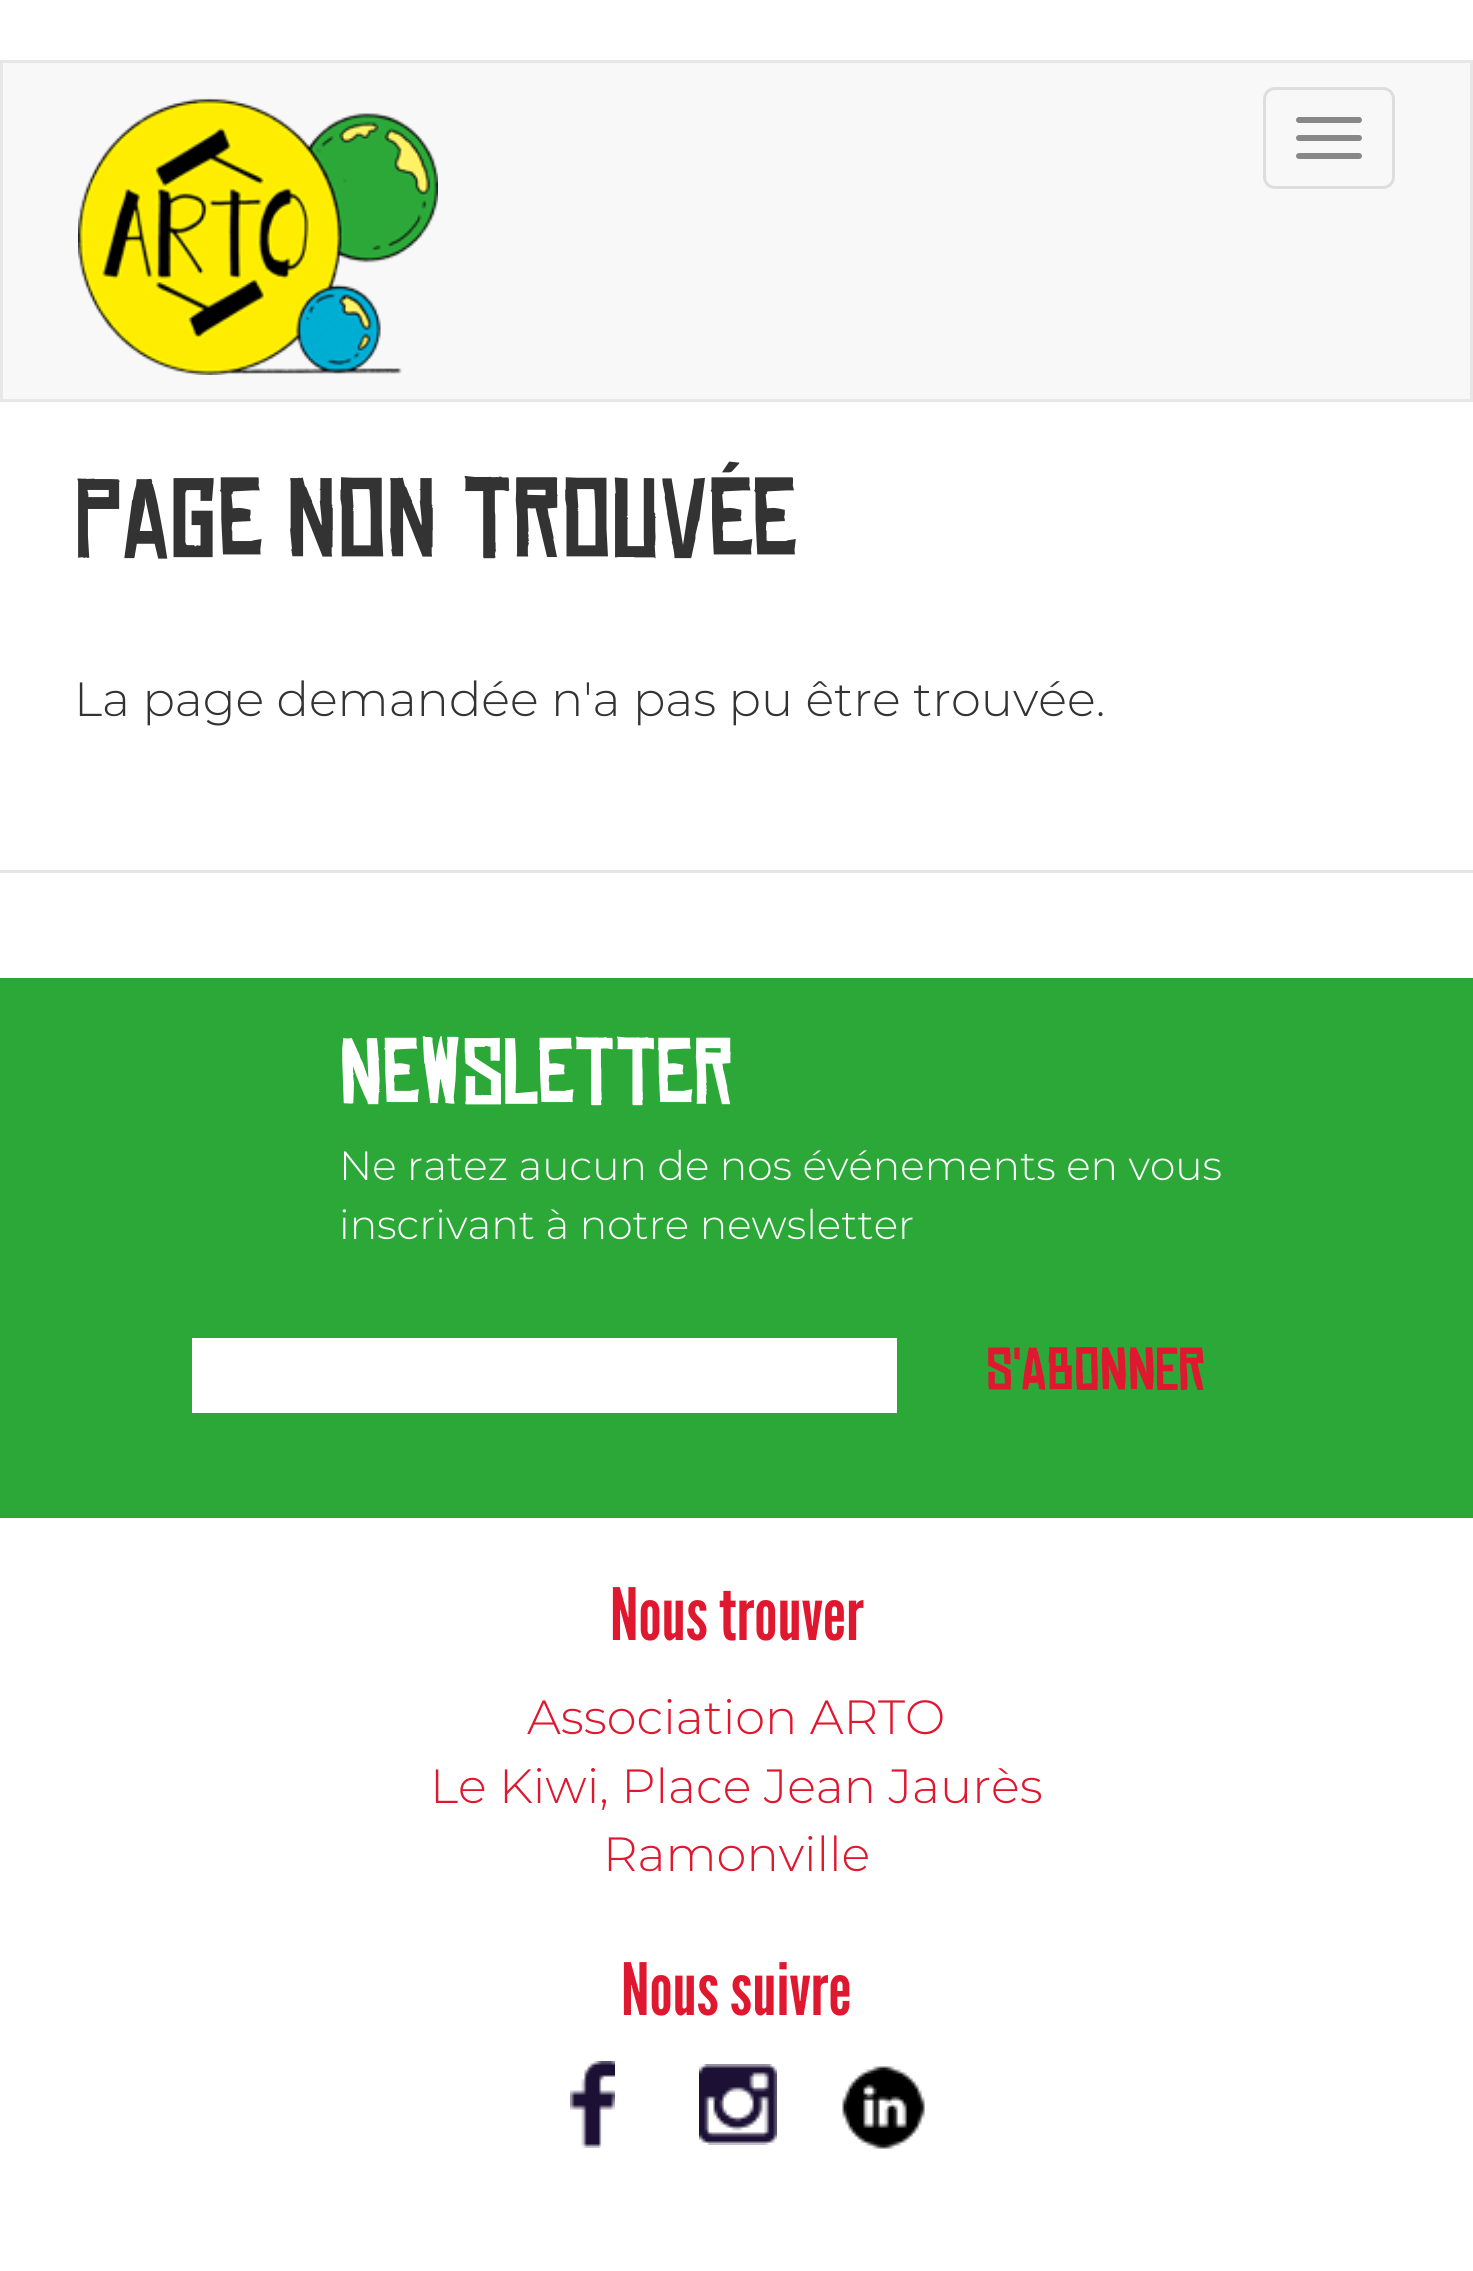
#include <cairo/cairo.h>
#include <math.h>
#include <stddef.h>

typedef struct { double x, y; const char *s; } line_t;
typedef struct { double x, y, w, h; unsigned color; } box_t;
static cairo_t *cr;

static void rgb(unsigned color)
{
	cairo_set_source_rgb(cr, (color >> 16) / 255.0, (color >> 8 & 255) / 255.0, (color & 255) / 255.0);
}

static void rrect(double x, double y, double w, double h, double r)
{
	cairo_new_sub_path(cr);
	cairo_arc(cr, x + w - r, y + h - r, r, 0, M_PI / 2);
	cairo_arc(cr, x + r, y + h - r, r, M_PI / 2, M_PI);
	cairo_arc(cr, x + r, y + r, r, M_PI, 1.5 * M_PI);
	cairo_arc(cr, x + w - r, y + r, r, 1.5 * M_PI, 2 * M_PI);
	cairo_close_path(cr);
}

static void image(const char *path, double x, double y, double w, double h)
{
	cairo_surface_t *image = cairo_image_surface_create_from_png(path);
	cairo_save(cr);
	cairo_set_source_surface(cr, image, x, y);
	cairo_rectangle(cr, x, y, w, h);
	cairo_fill(cr);
	cairo_restore(cr);
	cairo_surface_destroy(image);
}

int main(void) {
	cairo_surface_t *surface = cairo_image_surface_create(CAIRO_FORMAT_RGB24, 1473, 2271);
	cr = cairo_create(surface);
	cairo_font_options_t *options = cairo_font_options_create();
	cairo_font_options_set_hint_metrics(options, CAIRO_HINT_METRICS_OFF);
	cairo_font_options_set_hint_style(options, CAIRO_HINT_STYLE_NONE);
	cairo_set_font_options(cr, options);
	cairo_set_miter_limit(cr, 4);
	rgb(0xffffff);
	cairo_paint(cr);
	rgb(0xf8f8f8);
	cairo_rectangle(cr, 1.5, 61.5, 1470, 339);
	cairo_fill_preserve(cr);
	rgb(0xe7e7e7);
	cairo_set_line_width(cr, 3);
	cairo_stroke(cr);
	image("img/1.png", 78, 98, 360, 277);
	rrect(1264.5, 88.5, 129, 99, 10.5);
	rgb(0xdddddd);
	cairo_stroke(cr);
	rgb(0x888888);
	rrect(1296, 117, 66, 6, 3);
	cairo_fill(cr);
	rrect(1296, 135, 66, 6, 3);
	cairo_fill(cr);
	rrect(1296, 153, 66, 6, 3);
	cairo_fill(cr);
	{
		static const box_t items[] = {
			{0, 870, 1473, 3, 0xe5e5e5},
			{0, 978, 1473, 540, 0x2ca839},
			{192, 1338, 705, 75, 0xffffff},
		};
		for (size_t i = 0; i < sizeof items / sizeof *items; i++) {
			rgb(items[i].color);
			cairo_rectangle(cr, items[i].x, items[i].y, items[i].w, items[i].h);
			cairo_fill(cr);
		}
	}
	image("img/2.png", 570, 2061, 45, 87);
	image("img/3.png", 699, 2064, 78, 81);
	image("img/4.png", 842, 2066, 83, 83);
	cairo_select_font_face(cr, "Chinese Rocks", CAIRO_FONT_SLANT_NORMAL, CAIRO_FONT_WEIGHT_NORMAL);
	cairo_set_font_size(cr, 108);
	rgb(0x333333);
	cairo_move_to(cr, 74, 558);
	cairo_show_text(cr, "Page non trouvée");
	cairo_select_font_face(cr, "Montserrat Light", CAIRO_FONT_SLANT_NORMAL, CAIRO_FONT_WEIGHT_NORMAL);
	cairo_set_font_size(cr, 48);
	cairo_move_to(cr, 74, 716);
	cairo_show_text(cr, "La page demandée n'a pas pu être trouvée.");
	cairo_select_font_face(cr, "Chinese Rocks", CAIRO_FONT_SLANT_NORMAL, CAIRO_FONT_WEIGHT_NORMAL);
	cairo_set_font_size(cr, 90);
	rgb(0xffffff);
	cairo_move_to(cr, 339, 1105);
	cairo_show_text(cr, "Newsletter");
	cairo_select_font_face(cr, "Montserrat Light", CAIRO_FONT_SLANT_NORMAL, CAIRO_FONT_WEIGHT_NORMAL);
	cairo_set_font_size(cr, 40.8);
	cairo_move_to(cr, 339, 1180);
	cairo_show_text(cr, "Ne ratez aucun de nos événements en vous");
	cairo_move_to(cr, 339, 1239);
	cairo_show_text(cr, "inscrivant à notre newsletter");
	cairo_select_font_face(cr, "Chinese Rocks", CAIRO_FONT_SLANT_NORMAL, CAIRO_FONT_WEIGHT_NORMAL);
	cairo_set_font_size(cr, 57.5);
	rgb(0xdf172f);
	cairo_move_to(cr, 986, 1390);
	cairo_show_text(cr, "S'ABONNER");
	cairo_select_font_face(cr, "League Gothic", CAIRO_FONT_SLANT_NORMAL, CAIRO_FONT_WEIGHT_NORMAL);
	cairo_set_font_size(cr, 72);
	cairo_move_to(cr, 610, 1640);
	cairo_show_text(cr, "Nous trouver");
	cairo_select_font_face(cr, "Montserrat Light", CAIRO_FONT_SLANT_NORMAL, CAIRO_FONT_WEIGHT_NORMAL);
	cairo_set_font_size(cr, 48);
	{
		static const line_t items[] = {
			{527, 1734, "Association ARTO"},
			{430, 1803, "Le Kiwi, Place Jean Jaurès"},
			{603, 1871, "Ramonville"},
		};
		for (size_t i = 0; i < sizeof items / sizeof *items; i++) {
			cairo_move_to(cr, items[i].x, items[i].y);
			cairo_show_text(cr, items[i].s);
		}
	}
	cairo_select_font_face(cr, "League Gothic", CAIRO_FONT_SLANT_NORMAL, CAIRO_FONT_WEIGHT_NORMAL);
	cairo_set_font_size(cr, 72);
	cairo_move_to(cr, 621, 2015);
	cairo_show_text(cr, "Nous suivre");
	cairo_surface_write_to_png(surface, "page.png");
	cairo_font_options_destroy(options);
	cairo_destroy(cr);
	cairo_surface_destroy(surface);
	return 0;
}
